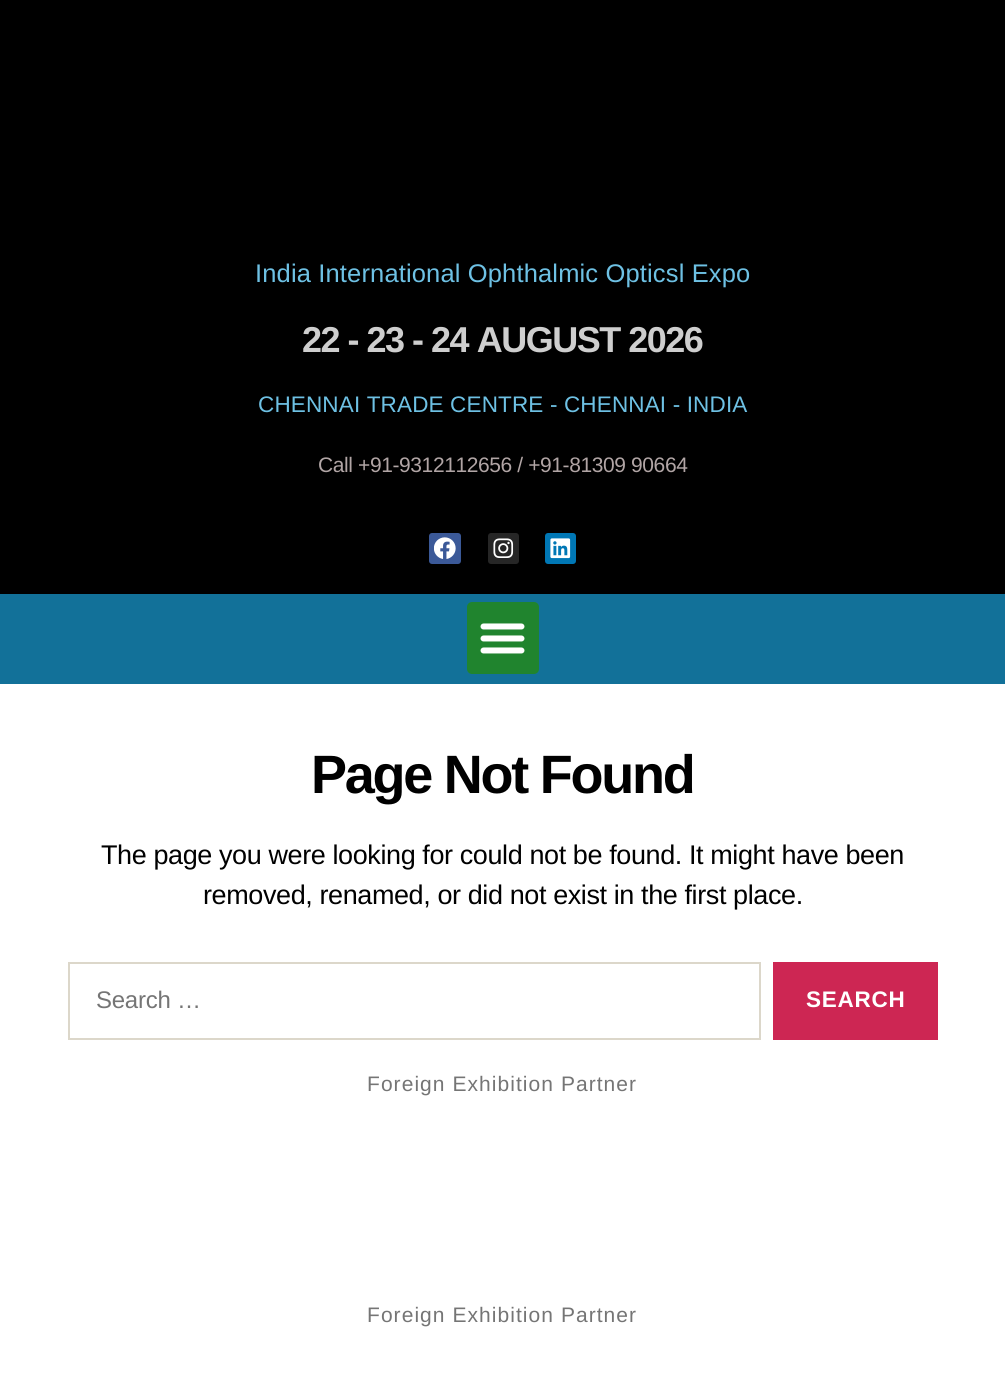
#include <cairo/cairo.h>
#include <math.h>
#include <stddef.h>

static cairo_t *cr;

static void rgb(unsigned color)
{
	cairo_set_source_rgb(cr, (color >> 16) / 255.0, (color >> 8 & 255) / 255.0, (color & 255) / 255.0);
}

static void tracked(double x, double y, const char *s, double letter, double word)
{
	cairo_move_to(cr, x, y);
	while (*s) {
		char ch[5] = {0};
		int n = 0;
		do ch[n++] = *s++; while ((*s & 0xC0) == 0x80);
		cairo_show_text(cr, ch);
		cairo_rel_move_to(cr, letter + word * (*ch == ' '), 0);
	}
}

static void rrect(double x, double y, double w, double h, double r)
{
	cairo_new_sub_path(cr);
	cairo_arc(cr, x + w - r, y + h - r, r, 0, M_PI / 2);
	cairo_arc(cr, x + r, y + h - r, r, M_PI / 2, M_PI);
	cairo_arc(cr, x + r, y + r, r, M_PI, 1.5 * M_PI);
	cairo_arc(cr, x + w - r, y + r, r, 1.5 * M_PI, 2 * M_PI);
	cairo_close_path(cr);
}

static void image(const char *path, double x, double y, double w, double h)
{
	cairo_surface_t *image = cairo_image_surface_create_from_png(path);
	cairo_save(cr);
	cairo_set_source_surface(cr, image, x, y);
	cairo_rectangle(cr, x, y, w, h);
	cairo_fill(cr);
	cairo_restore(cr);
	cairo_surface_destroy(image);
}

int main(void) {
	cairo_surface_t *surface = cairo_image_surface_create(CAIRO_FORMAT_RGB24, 1005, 1393);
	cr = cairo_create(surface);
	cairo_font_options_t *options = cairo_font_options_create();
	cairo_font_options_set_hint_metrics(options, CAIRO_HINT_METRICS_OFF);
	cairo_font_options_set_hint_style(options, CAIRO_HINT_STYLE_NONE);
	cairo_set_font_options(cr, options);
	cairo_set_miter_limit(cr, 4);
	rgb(0xffffff);
	cairo_paint(cr);
	rgb(0x000000);
	cairo_rectangle(cr, 0, 0, 1005, 594);
	cairo_fill(cr);
	rgb(0x3b5998);
	rrect(429, 533, 32, 31, 3);
	cairo_fill(cr);
	image("img/1.png", 434, 537, 22, 22);
	rgb(0x262626);
	rrect(488, 533, 31, 31, 3);
	cairo_fill(cr);
	image("img/2.png", 493, 538, 21, 20);
	rgb(0x0077b5);
	rrect(545, 533, 31, 31, 3);
	cairo_fill(cr);
	image("img/3.png", 550, 538, 21, 21);
	rgb(0x127199);
	cairo_rectangle(cr, 0, 594, 1005, 90);
	cairo_fill(cr);
	rgb(0x20842e);
	rrect(467, 602, 72, 72, 5);
	cairo_fill(cr);
	image("img/4.png", 480, 623, 45, 31);
	cairo_rectangle(cr, 69, 963, 691, 76);
	rgb(0xdcd7ca);
	cairo_stroke(cr);
	rgb(0xcd2653);
	cairo_rectangle(cr, 773, 962, 165, 78);
	cairo_fill(cr);
	cairo_select_font_face(cr, "Liberation Sans", CAIRO_FONT_SLANT_NORMAL, CAIRO_FONT_WEIGHT_NORMAL);
	cairo_set_font_size(cr, 25.5);
	rgb(0x6ec1e4);
	tracked(255, 282, "India International Ophthalmic Opticsl Expo", 0.15, 0);
	cairo_select_font_face(cr, "Liberation Sans", CAIRO_FONT_SLANT_NORMAL, CAIRO_FONT_WEIGHT_BOLD);
	cairo_set_font_size(cr, 36);
	rgb(0xcecece);
	tracked(302, 352, "22 - 23 - 24 AUGUST 2026", -1.5, 0);
	cairo_select_font_face(cr, "Liberation Sans", CAIRO_FONT_SLANT_NORMAL, CAIRO_FONT_WEIGHT_NORMAL);
	cairo_set_font_size(cr, 22.5);
	rgb(0x6ec1e4);
	tracked(258, 412, "CHENNAI TRADE CENTRE - CHENNAI - INDIA", 0.15, 0);
	cairo_set_font_size(cr, 21);
	rgb(0xb1a5a5);
	tracked(318, 472, "Call +91-9312112656 / +91-81309 90664", -0.4, 0);
	cairo_select_font_face(cr, "Liberation Sans", CAIRO_FONT_SLANT_NORMAL, CAIRO_FONT_WEIGHT_BOLD);
	cairo_set_font_size(cr, 54);
	rgb(0x000000);
	tracked(311, 793, "Page Not Found", -2.25, 0);
	cairo_select_font_face(cr, "Liberation Sans", CAIRO_FONT_SLANT_NORMAL, CAIRO_FONT_WEIGHT_NORMAL);
	cairo_set_font_size(cr, 27);
	tracked(101, 864, "The page you were looking for could not be found. It might have been", -0.4, 0);
	tracked(203, 904, "removed, renamed, or did not exist in the first place.", -0.4, 0);
	cairo_set_font_size(cr, 24);
	rgb(0x757575);
	tracked(96, 1008, "Search …", -0.25, 0);
	cairo_select_font_face(cr, "Liberation Sans", CAIRO_FONT_SLANT_NORMAL, CAIRO_FONT_WEIGHT_BOLD);
	cairo_set_font_size(cr, 22.5);
	rgb(0xffffff);
	tracked(806, 1007, "SEARCH", 0.75, 0);
	cairo_select_font_face(cr, "Liberation Sans", CAIRO_FONT_SLANT_NORMAL, CAIRO_FONT_WEIGHT_NORMAL);
	cairo_set_font_size(cr, 21);
	rgb(0x757575);
	tracked(367, 1091, "Foreign Exhibition Partner", 1.05, 0);
	tracked(367, 1322, "Foreign Exhibition Partner", 1.05, 0);
	cairo_surface_write_to_png(surface, "page.png");
	cairo_font_options_destroy(options);
	cairo_destroy(cr);
	cairo_surface_destroy(surface);
	return 0;
}
